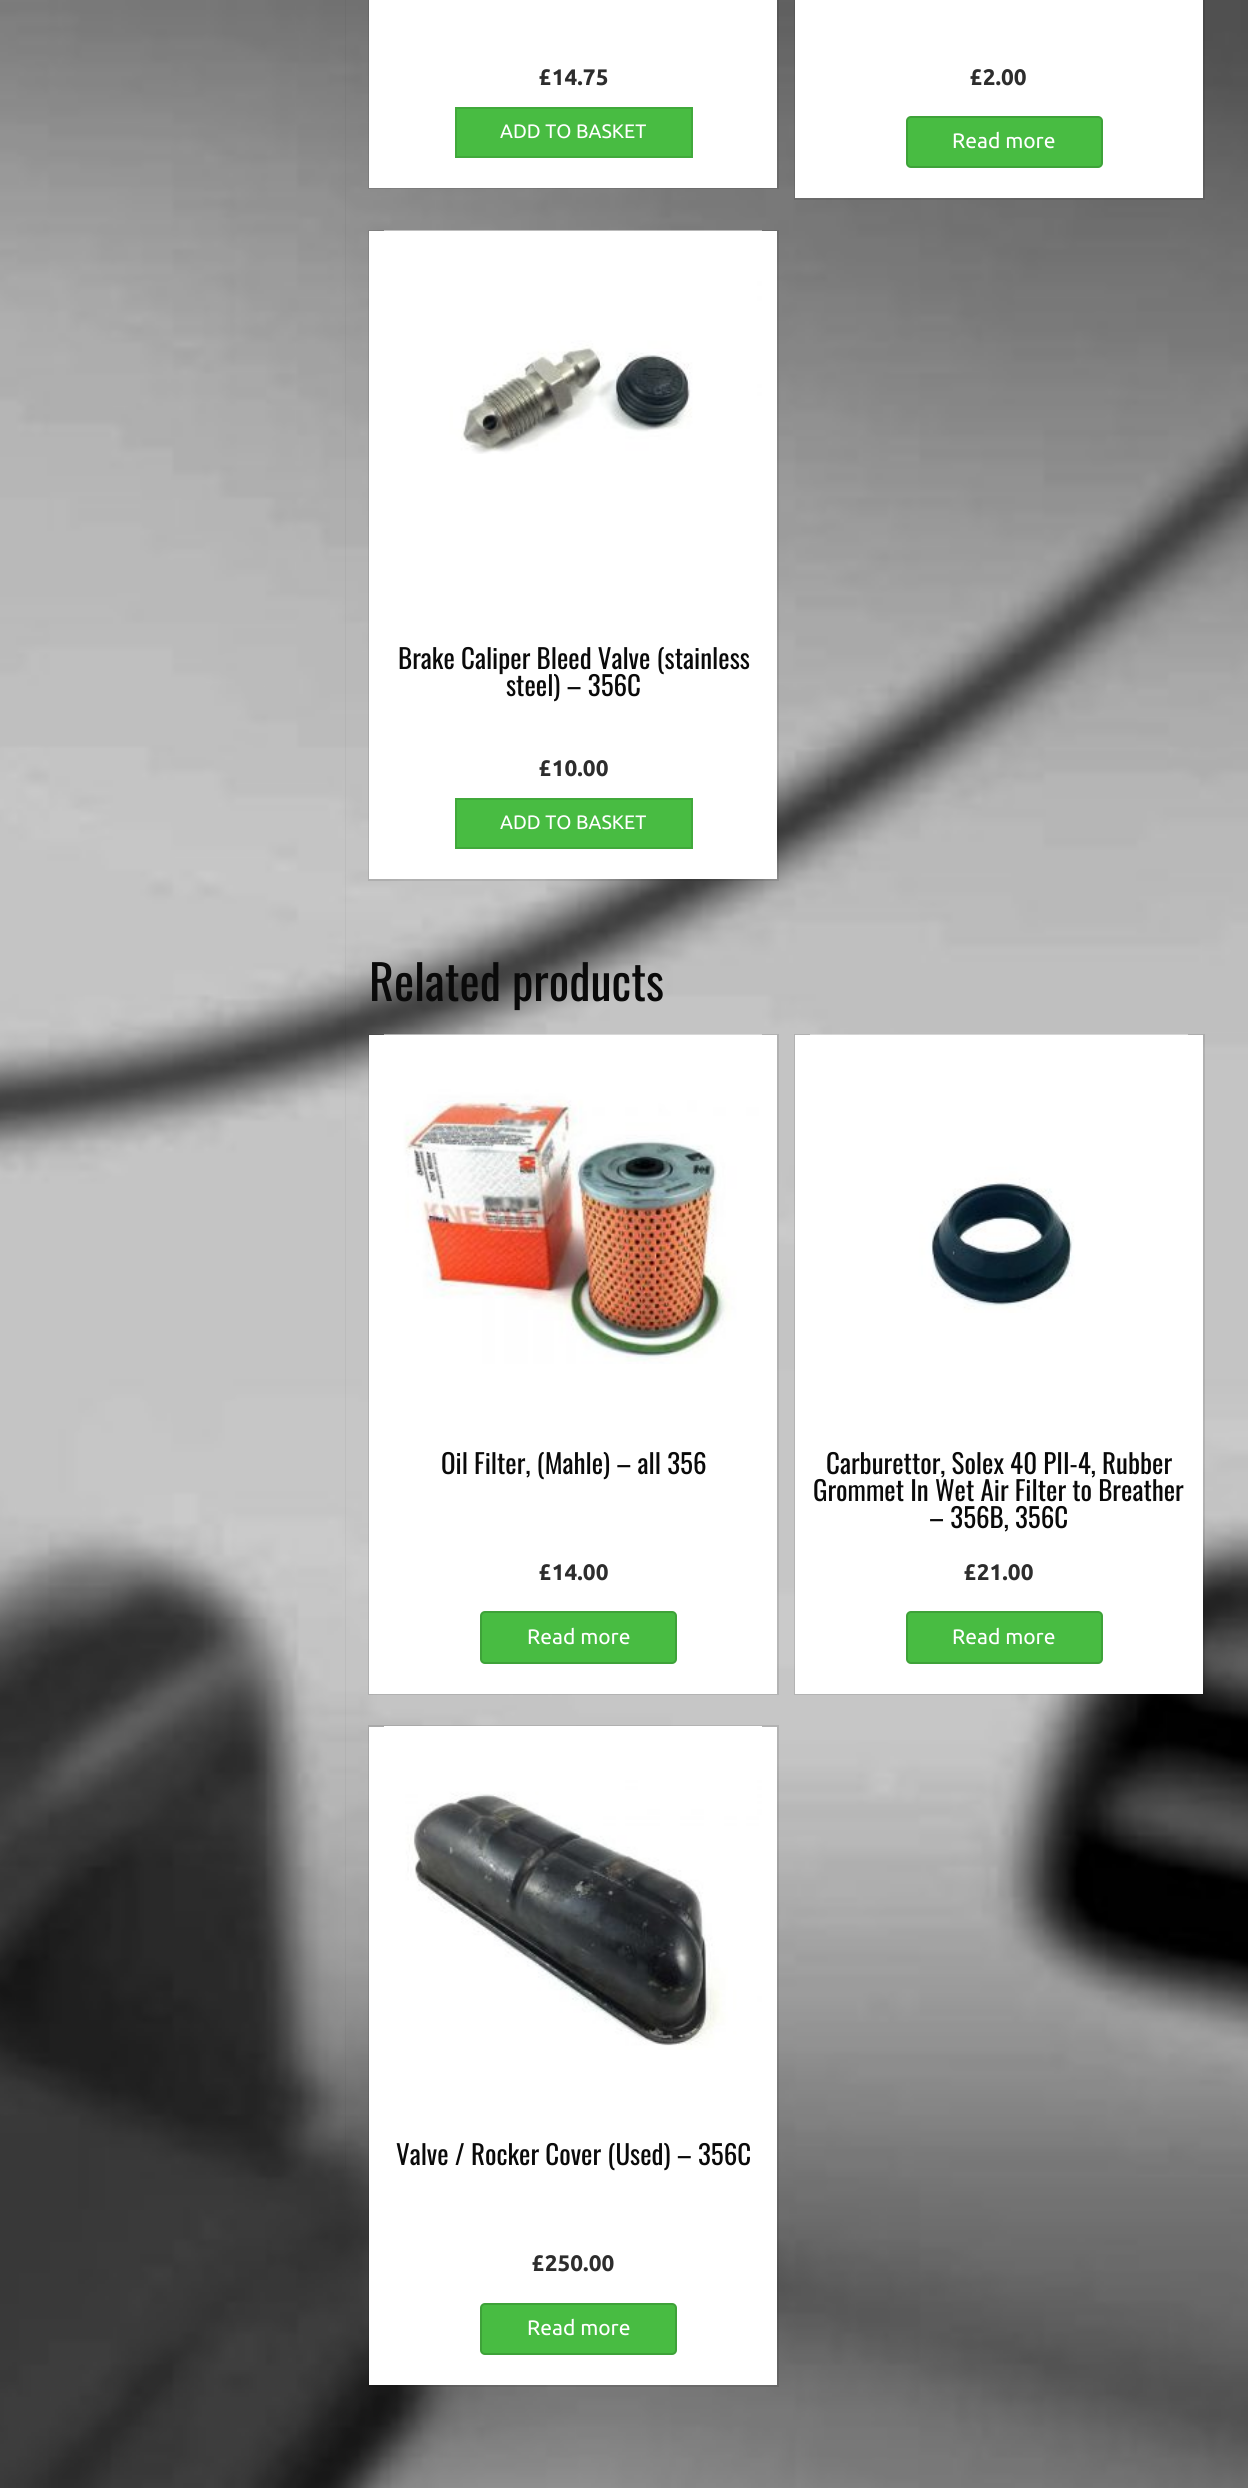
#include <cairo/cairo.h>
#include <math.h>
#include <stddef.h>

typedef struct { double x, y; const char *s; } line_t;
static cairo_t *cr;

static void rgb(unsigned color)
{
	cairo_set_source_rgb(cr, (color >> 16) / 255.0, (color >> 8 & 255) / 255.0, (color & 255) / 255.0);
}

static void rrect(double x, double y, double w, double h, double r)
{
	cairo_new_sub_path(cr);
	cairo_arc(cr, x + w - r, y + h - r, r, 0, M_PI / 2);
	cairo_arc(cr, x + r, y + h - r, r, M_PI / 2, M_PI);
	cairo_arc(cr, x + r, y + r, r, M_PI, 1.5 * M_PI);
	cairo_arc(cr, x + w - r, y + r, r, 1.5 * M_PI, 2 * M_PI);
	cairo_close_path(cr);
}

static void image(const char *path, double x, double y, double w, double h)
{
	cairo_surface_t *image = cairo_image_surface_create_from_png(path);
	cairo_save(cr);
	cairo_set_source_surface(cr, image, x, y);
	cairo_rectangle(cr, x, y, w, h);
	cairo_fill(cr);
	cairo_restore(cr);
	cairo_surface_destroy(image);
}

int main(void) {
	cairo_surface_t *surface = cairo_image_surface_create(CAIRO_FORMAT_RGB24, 1248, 2488);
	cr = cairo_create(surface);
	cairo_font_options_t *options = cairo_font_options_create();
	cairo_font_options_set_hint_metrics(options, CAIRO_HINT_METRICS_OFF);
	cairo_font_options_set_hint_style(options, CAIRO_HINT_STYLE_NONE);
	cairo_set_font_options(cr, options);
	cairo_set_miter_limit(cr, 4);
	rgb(0xffffff);
	cairo_paint(cr);
	image("img/1.png", 0, 0, 1248, 2488);
	cairo_set_source_rgba(cr, 0, 0, 0, 0.04);
	cairo_rectangle(cr, 345, 0, 1, 2169);
	cairo_fill(cr);
	cairo_rectangle(cr, 369, -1, 409, 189);
	cairo_set_source_rgba(cr, 0, 0, 0, 0.1);
	cairo_stroke(cr);
	rgb(0xffffff);
	cairo_rectangle(cr, 369, 0, 408, 188);
	cairo_fill(cr);
	rgb(0x48bc42);
	cairo_rectangle(cr, 456, 108, 236, 49);
	cairo_fill_preserve(cr);
	rgb(0x41a93b);
	cairo_stroke(cr);
	cairo_rectangle(cr, 795, -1, 409, 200);
	cairo_set_source_rgba(cr, 0, 0, 0, 0.1);
	cairo_stroke(cr);
	rgb(0xffffff);
	cairo_rectangle(cr, 795, 0, 408, 198);
	cairo_fill(cr);
	rgb(0x48bc42);
	rrect(906, 116, 197, 52, 5);
	cairo_fill(cr);
	rrect(907, 117, 195, 50, 4);
	cairo_set_source_rgba(cr, 0, 0, 0, 0.14);
	cairo_stroke(cr);
	cairo_rectangle(cr, 369, 231, 409, 649);
	cairo_set_source_rgba(cr, 0, 0, 0, 0.1);
	cairo_stroke(cr);
	rgb(0xffffff);
	cairo_rectangle(cr, 369, 231, 408, 648);
	cairo_fill(cr);
	image("img/2.png", 384, 230, 378, 224);
	rgb(0x48bc42);
	cairo_rectangle(cr, 456, 799, 236, 49);
	cairo_fill_preserve(cr);
	rgb(0x41a93b);
	cairo_stroke(cr);
	cairo_rectangle(cr, 369, 1035, 409, 659);
	cairo_set_source_rgba(cr, 0, 0, 0, 0.1);
	cairo_stroke(cr);
	rgb(0xffffff);
	cairo_rectangle(cr, 369, 1035, 408, 659);
	cairo_fill(cr);
	image("img/3.png", 384, 1034, 378, 330);
	rgb(0x48bc42);
	rrect(480, 1611, 197, 53, 5);
	cairo_fill(cr);
	rrect(481, 1612, 195, 51, 4);
	cairo_set_source_rgba(cr, 0, 0, 0, 0.14);
	cairo_stroke(cr);
	cairo_rectangle(cr, 795, 1035, 409, 659);
	cairo_set_source_rgba(cr, 0, 0, 0, 0.1);
	cairo_stroke(cr);
	rgb(0xffffff);
	cairo_rectangle(cr, 795, 1035, 408, 659);
	cairo_fill(cr);
	image("img/4.png", 810, 1034, 378, 279);
	rgb(0x48bc42);
	rrect(906, 1611, 197, 53, 5);
	cairo_fill(cr);
	rrect(907, 1612, 195, 51, 4);
	cairo_set_source_rgba(cr, 0, 0, 0, 0.14);
	cairo_stroke(cr);
	cairo_rectangle(cr, 369, 1726, 409, 660);
	cairo_set_source_rgba(cr, 0, 0, 0, 0.1);
	cairo_stroke(cr);
	rgb(0xffffff);
	cairo_rectangle(cr, 369, 1727, 408, 658);
	cairo_fill(cr);
	image("img/5.png", 384, 1726, 378, 324);
	rgb(0x48bc42);
	rrect(480, 2303, 197, 52, 5);
	cairo_fill(cr);
	rrect(481, 2304, 195, 50, 4);
	cairo_set_source_rgba(cr, 0, 0, 0, 0.14);
	cairo_stroke(cr);
	cairo_select_font_face(cr, "Ubuntu", CAIRO_FONT_SLANT_NORMAL, CAIRO_FONT_WEIGHT_BOLD);
	cairo_set_font_size(cr, 22.5);
	rgb(0x2d2d2d);
	cairo_move_to(cr, 539, 85);
	cairo_show_text(cr, "£14.75");
	cairo_select_font_face(cr, "Ubuntu", CAIRO_FONT_SLANT_NORMAL, CAIRO_FONT_WEIGHT_NORMAL);
	cairo_set_font_size(cr, 19.5);
	rgb(0xffffff);
	cairo_move_to(cr, 500, 138);
	cairo_show_text(cr, "ADD TO BASKET");
	cairo_select_font_face(cr, "Ubuntu", CAIRO_FONT_SLANT_NORMAL, CAIRO_FONT_WEIGHT_BOLD);
	cairo_set_font_size(cr, 22.5);
	rgb(0x2d2d2d);
	cairo_move_to(cr, 970, 85);
	cairo_show_text(cr, "£2.00");
	cairo_select_font_face(cr, "Ubuntu", CAIRO_FONT_SLANT_NORMAL, CAIRO_FONT_WEIGHT_NORMAL);
	cairo_set_font_size(cr, 21);
	rgb(0xffffff);
	cairo_move_to(cr, 952, 148);
	cairo_show_text(cr, "Read more");
	cairo_select_font_face(cr, "Oswald", CAIRO_FONT_SLANT_NORMAL, CAIRO_FONT_WEIGHT_NORMAL);
	cairo_set_font_size(cr, 27);
	rgb(0x0a0a0a);
	cairo_move_to(cr, 398, 669);
	cairo_show_text(cr, "Brake Caliper Bleed Valve (stainless");
	cairo_move_to(cr, 506, 696);
	cairo_show_text(cr, "steel) – 356C");
	cairo_select_font_face(cr, "Ubuntu", CAIRO_FONT_SLANT_NORMAL, CAIRO_FONT_WEIGHT_BOLD);
	cairo_set_font_size(cr, 22.5);
	rgb(0x2d2d2d);
	cairo_move_to(cr, 539, 776);
	cairo_show_text(cr, "£10.00");
	cairo_select_font_face(cr, "Ubuntu", CAIRO_FONT_SLANT_NORMAL, CAIRO_FONT_WEIGHT_NORMAL);
	cairo_set_font_size(cr, 19.5);
	rgb(0xffffff);
	cairo_move_to(cr, 500, 829);
	cairo_show_text(cr, "ADD TO BASKET");
	cairo_select_font_face(cr, "Oswald", CAIRO_FONT_SLANT_NORMAL, CAIRO_FONT_WEIGHT_NORMAL);
	cairo_set_font_size(cr, 48);
	rgb(0x0a0a0a);
	cairo_move_to(cr, 369, 1001);
	cairo_show_text(cr, "Related products");
	cairo_set_font_size(cr, 27);
	cairo_move_to(cr, 441, 1474);
	cairo_show_text(cr, "Oil Filter, (Mahle) – all 356");
	cairo_select_font_face(cr, "Ubuntu", CAIRO_FONT_SLANT_NORMAL, CAIRO_FONT_WEIGHT_BOLD);
	cairo_set_font_size(cr, 22.5);
	rgb(0x2d2d2d);
	cairo_move_to(cr, 539, 1580);
	cairo_show_text(cr, "£14.00");
	cairo_select_font_face(cr, "Ubuntu", CAIRO_FONT_SLANT_NORMAL, CAIRO_FONT_WEIGHT_NORMAL);
	cairo_set_font_size(cr, 21);
	rgb(0xffffff);
	cairo_move_to(cr, 527, 1644);
	cairo_show_text(cr, "Read more");
	cairo_select_font_face(cr, "Oswald", CAIRO_FONT_SLANT_NORMAL, CAIRO_FONT_WEIGHT_NORMAL);
	cairo_set_font_size(cr, 27);
	rgb(0x0a0a0a);
	{
		static const line_t items[] = {
			{826, 1474, "Carburettor, Solex 40 PII-4, Rubber"},
			{813, 1501, "Grommet In Wet Air Filter to Breather"},
			{929, 1528, "– 356B, 356C"},
		};
		for (size_t i = 0; i < sizeof items / sizeof *items; i++) {
			cairo_move_to(cr, items[i].x, items[i].y);
			cairo_show_text(cr, items[i].s);
		}
	}
	cairo_select_font_face(cr, "Ubuntu", CAIRO_FONT_SLANT_NORMAL, CAIRO_FONT_WEIGHT_BOLD);
	cairo_set_font_size(cr, 22.5);
	rgb(0x2d2d2d);
	cairo_move_to(cr, 964, 1580);
	cairo_show_text(cr, "£21.00");
	cairo_select_font_face(cr, "Ubuntu", CAIRO_FONT_SLANT_NORMAL, CAIRO_FONT_WEIGHT_NORMAL);
	cairo_set_font_size(cr, 21);
	rgb(0xffffff);
	cairo_move_to(cr, 952, 1644);
	cairo_show_text(cr, "Read more");
	cairo_select_font_face(cr, "Oswald", CAIRO_FONT_SLANT_NORMAL, CAIRO_FONT_WEIGHT_NORMAL);
	cairo_set_font_size(cr, 27);
	rgb(0x0a0a0a);
	cairo_move_to(cr, 396, 2165);
	cairo_show_text(cr, "Valve / Rocker Cover (Used) – 356C");
	cairo_select_font_face(cr, "Ubuntu", CAIRO_FONT_SLANT_NORMAL, CAIRO_FONT_WEIGHT_BOLD);
	cairo_set_font_size(cr, 22.5);
	rgb(0x2d2d2d);
	cairo_move_to(cr, 532, 2271);
	cairo_show_text(cr, "£250.00");
	cairo_select_font_face(cr, "Ubuntu", CAIRO_FONT_SLANT_NORMAL, CAIRO_FONT_WEIGHT_NORMAL);
	cairo_set_font_size(cr, 21);
	rgb(0xffffff);
	cairo_move_to(cr, 527, 2335);
	cairo_show_text(cr, "Read more");
	cairo_surface_write_to_png(surface, "page.png");
	cairo_font_options_destroy(options);
	cairo_destroy(cr);
	cairo_surface_destroy(surface);
	return 0;
}
